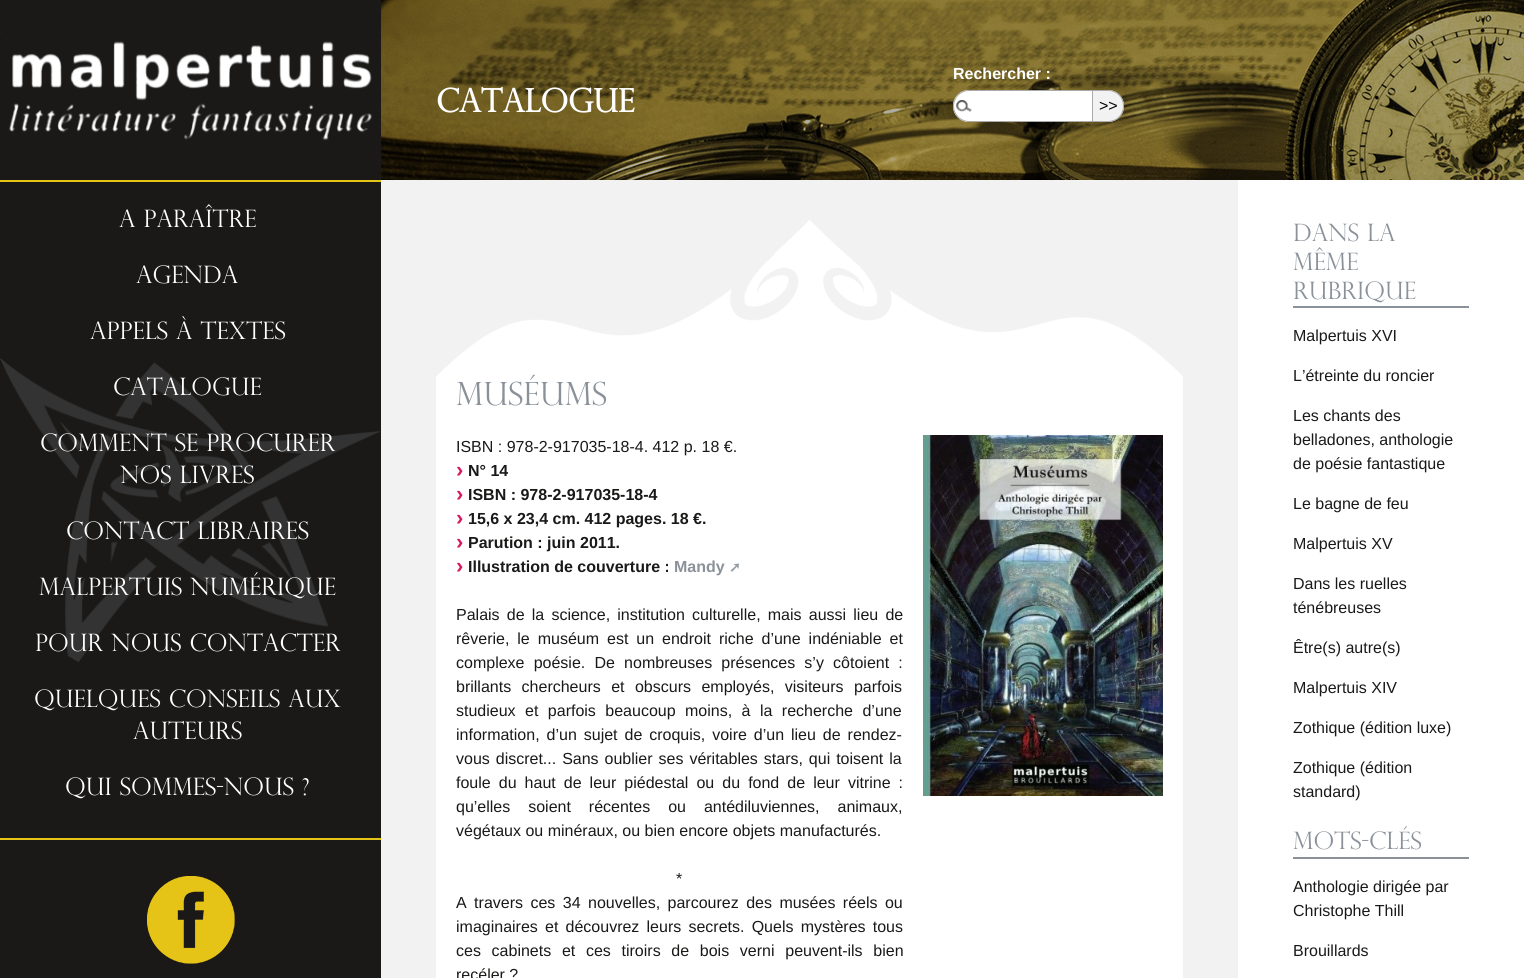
#include <cairo/cairo.h>
#include <math.h>
#include <stddef.h>

typedef struct { double x, y; const char *s; } line_t;
typedef struct { double x, y, w, h; unsigned color; } box_t;
static cairo_t *cr;

static void rgb(unsigned color)
{
	cairo_set_source_rgb(cr, (color >> 16) / 255.0, (color >> 8 & 255) / 255.0, (color & 255) / 255.0);
}

static void tracked(double x, double y, const char *s, double letter, double word)
{
	cairo_move_to(cr, x, y);
	while (*s) {
		char ch[5] = {0};
		int n = 0;
		do ch[n++] = *s++; while ((*s & 0xC0) == 0x80);
		cairo_show_text(cr, ch);
		cairo_rel_move_to(cr, letter + word * (*ch == ' '), 0);
	}
}

static void image(const char *path, double x, double y, double w, double h)
{
	cairo_surface_t *image = cairo_image_surface_create_from_png(path);
	cairo_save(cr);
	cairo_set_source_surface(cr, image, x, y);
	cairo_rectangle(cr, x, y, w, h);
	cairo_fill(cr);
	cairo_restore(cr);
	cairo_surface_destroy(image);
}

int main(void) {
	cairo_surface_t *surface = cairo_image_surface_create(CAIRO_FORMAT_RGB24, 1524, 978);
	cr = cairo_create(surface);
	cairo_font_options_t *options = cairo_font_options_create();
	cairo_font_options_set_hint_metrics(options, CAIRO_HINT_METRICS_OFF);
	cairo_font_options_set_hint_style(options, CAIRO_HINT_STYLE_NONE);
	cairo_set_font_options(cr, options);
	cairo_set_miter_limit(cr, 4);
	rgb(0xf2f2f2);
	cairo_paint(cr);
	rgb(0x1a1918);
	cairo_rectangle(cr, 0, 0, 381, 978);
	cairo_fill(cr);
	image("img/1.png", 0, 33, 381, 108);
	image("img/2.png", 0, 358, 381, 304);
	rgb(0xe6c317);
	cairo_rectangle(cr, 0, 180, 381, 2);
	cairo_fill(cr);
	cairo_rectangle(cr, 0, 838, 381, 2);
	cairo_fill(cr);
	image("img/3.png", 147, 876, 88, 88);
	image("img/4.png", 381, 0, 1143, 180);
	rgb(0xffffff);
	cairo_new_path(cr);
	cairo_move_to(cr, 969, 90);
	cairo_line_to(cr, 1093, 90);
	cairo_line_to(cr, 1093, 122);
	cairo_line_to(cr, 969, 122);
	cairo_curve_to(cr, 960, 122, 953, 115, 953, 106);
	cairo_curve_to(cr, 953, 97, 960, 90, 969, 90);
	cairo_close_path(cr);
	cairo_fill(cr);
	image("img/5.png", 956, 100, 16, 12);
	cairo_new_path(cr);
	cairo_move_to(cr, 969, 90.5);
	cairo_line_to(cr, 1092.5, 90.5);
	cairo_line_to(cr, 1092.5, 121.5);
	cairo_line_to(cr, 969, 121.5);
	cairo_curve_to(cr, 960.5, 121.5, 953.5, 114.5, 953.5, 106);
	cairo_curve_to(cr, 953.5, 97.5, 960.5, 90.5, 969, 90.5);
	cairo_close_path(cr);
	rgb(0xaaaaaa);
	cairo_set_line_width(cr, 1);
	cairo_stroke(cr);
	rgb(0xf2f2f2);
	cairo_new_path(cr);
	cairo_move_to(cr, 1093, 90);
	cairo_line_to(cr, 1108, 90);
	cairo_curve_to(cr, 1117, 90, 1124, 97, 1124, 106);
	cairo_curve_to(cr, 1124, 115, 1117, 122, 1108, 122);
	cairo_line_to(cr, 1093, 122);
	cairo_close_path(cr);
	cairo_fill(cr);
	rgb(0xaaaaaa);
	cairo_set_fill_rule(cr, CAIRO_FILL_RULE_EVEN_ODD);
	cairo_new_path(cr);
	cairo_move_to(cr, 1093, 90);
	cairo_line_to(cr, 1108, 90);
	cairo_curve_to(cr, 1117, 90, 1124, 97, 1124, 106);
	cairo_curve_to(cr, 1124, 115, 1117, 122, 1108, 122);
	cairo_line_to(cr, 1093, 122);
	cairo_close_path(cr);
	cairo_move_to(cr, 1093, 91);
	cairo_line_to(cr, 1108, 91);
	cairo_curve_to(cr, 1116.5, 91, 1123, 97.5, 1123, 106);
	cairo_curve_to(cr, 1123, 114.5, 1116.5, 121, 1108, 121);
	cairo_line_to(cr, 1093, 121);
	cairo_close_path(cr);
	cairo_fill(cr);
	image("img/6.png", 436, 220, 747, 157);
	rgb(0xffffff);
	cairo_rectangle(cr, 436, 377, 747, 601);
	cairo_fill(cr);
	image("img/7.png", 923, 435, 240, 361);
	{
		static const box_t items[] = {
			{1238, 180, 286, 798, 0xffffff},
			{1293, 306, 176, 2, 0x8a9199},
			{1293, 857, 176, 2, 0x8a9199},
		};
		for (size_t i = 0; i < sizeof items / sizeof *items; i++) {
			rgb(items[i].color);
			cairo_rectangle(cr, items[i].x, items[i].y, items[i].w, items[i].h);
			cairo_fill(cr);
		}
	}
	cairo_select_font_face(cr, "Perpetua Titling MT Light", CAIRO_FONT_SLANT_NORMAL, CAIRO_FONT_WEIGHT_NORMAL);
	cairo_set_font_size(cr, 24);
	rgb(0xffffff);
	{
		static const line_t items[] = {
			{119, 227, "A paraître"},
			{136, 283, "Agenda"},
			{90, 339, "Appels à textes"},
			{113, 395, "Catalogue"},
			{40, 451, "Comment se procurer"},
			{120, 483, "nos livres"},
			{66, 539, "Contact libraires"},
			{39, 595, "Malpertuis numérique"},
			{35, 651, "Pour nous contacter"},
			{34, 707, "Quelques conseils aux"},
			{133, 739, "auteurs"},
			{65, 795, "Qui sommes-nous ?"},
		};
		for (size_t i = 0; i < sizeof items / sizeof *items; i++) {
			cairo_move_to(cr, items[i].x, items[i].y);
			cairo_show_text(cr, items[i].s);
		}
	}
	cairo_select_font_face(cr, "Perpetua Titling MT", CAIRO_FONT_SLANT_NORMAL, CAIRO_FONT_WEIGHT_BOLD);
	cairo_set_font_size(cr, 32);
	cairo_move_to(cr, 436, 112);
	cairo_show_text(cr, "Catalogue");
	cairo_select_font_face(cr, "Liberation Sans", CAIRO_FONT_SLANT_NORMAL, CAIRO_FONT_WEIGHT_BOLD);
	cairo_set_font_size(cr, 16);
	cairo_move_to(cr, 953, 79);
	cairo_show_text(cr, "Rechercher :");
	cairo_select_font_face(cr, "Liberation Sans", CAIRO_FONT_SLANT_NORMAL, CAIRO_FONT_WEIGHT_NORMAL);
	rgb(0x000000);
	cairo_move_to(cr, 1099, 111);
	cairo_show_text(cr, ">>");
	cairo_select_font_face(cr, "Perpetua Titling MT Light", CAIRO_FONT_SLANT_NORMAL, CAIRO_FONT_WEIGHT_NORMAL);
	cairo_set_font_size(cr, 32);
	rgb(0x8a9199);
	cairo_move_to(cr, 456, 405);
	cairo_show_text(cr, "Muséums");
	cairo_select_font_face(cr, "Liberation Sans", CAIRO_FONT_SLANT_NORMAL, CAIRO_FONT_WEIGHT_NORMAL);
	cairo_set_font_size(cr, 16);
	rgb(0x1a1918);
	cairo_move_to(cr, 456, 452);
	cairo_show_text(cr, "ISBN : 978-2-917035-18-4. 412 p. 18 €.");
	cairo_select_font_face(cr, "Liberation Sans", CAIRO_FONT_SLANT_NORMAL, CAIRO_FONT_WEIGHT_BOLD);
	cairo_set_font_size(cr, 22);
	rgb(0xdb1762);
	cairo_move_to(cr, 456, 477);
	cairo_show_text(cr, "›");
	cairo_set_font_size(cr, 16);
	rgb(0x1a1918);
	cairo_move_to(cr, 468, 476);
	cairo_show_text(cr, "N° 14");
	cairo_set_font_size(cr, 22);
	rgb(0xdb1762);
	cairo_move_to(cr, 456, 501);
	cairo_show_text(cr, "›");
	cairo_set_font_size(cr, 16);
	rgb(0x1a1918);
	cairo_move_to(cr, 468, 500);
	cairo_show_text(cr, "ISBN : 978-2-917035-18-4");
	cairo_set_font_size(cr, 22);
	rgb(0xdb1762);
	cairo_move_to(cr, 456, 525);
	cairo_show_text(cr, "›");
	cairo_set_font_size(cr, 16);
	rgb(0x1a1918);
	cairo_move_to(cr, 468, 524);
	cairo_show_text(cr, "15,6 x 23,4 cm. 412 pages. 18 €.");
	cairo_set_font_size(cr, 22);
	rgb(0xdb1762);
	cairo_move_to(cr, 456, 549);
	cairo_show_text(cr, "›");
	cairo_set_font_size(cr, 16);
	rgb(0x1a1918);
	cairo_move_to(cr, 468, 548);
	cairo_show_text(cr, "Parution : juin 2011.");
	cairo_set_font_size(cr, 22);
	rgb(0xdb1762);
	cairo_move_to(cr, 456, 573);
	cairo_show_text(cr, "›");
	cairo_set_font_size(cr, 16);
	rgb(0x1a1918);
	cairo_move_to(cr, 468, 572);
	cairo_show_text(cr, "Illustration de couverture :");
	rgb(0x8a9199);
	cairo_move_to(cr, 674, 572);
	cairo_show_text(cr, "Mandy");
	cairo_select_font_face(cr, "DejaVu Sans", CAIRO_FONT_SLANT_NORMAL, CAIRO_FONT_WEIGHT_BOLD);
	cairo_set_font_size(cr, 14);
	rgb(0x969ca3);
	cairo_move_to(cr, 729, 572);
	cairo_show_text(cr, "➚");
	cairo_select_font_face(cr, "Liberation Sans", CAIRO_FONT_SLANT_NORMAL, CAIRO_FONT_WEIGHT_NORMAL);
	cairo_set_font_size(cr, 16);
	rgb(0x1a1918);
	tracked(456, 620, "Palais de la science, institution culturelle, mais aussi lieu de", 0, 2.75);
	tracked(456, 644, "rêverie, le muséum est un endroit riche d’une indéniable et", 0, 3.5);
	tracked(456, 668, "complexe poésie. De nombreuses présences s’y côtoient :", 0, 4.75);
	tracked(456, 692, "brillants chercheurs et obscurs employés, visiteurs parfois", 0, 6);
	tracked(456, 716, "studieux et parfois beaucoup moins, à la recherche d’une", 0, 5);
	tracked(456, 740, "information, d’un sujet de croquis, voire d’un lieu de rendez-", 0, 2.5);
	tracked(456, 764, "vous discret... Sans oublier ses véritables stars, qui toisent la", 0, 1.5);
	tracked(456, 788, "foule du haut de leur piédestal ou du fond de leur vitrine :", 0, 3.6);
	tracked(456, 812, "qu’elles soient récentes ou antédiluviennes, animaux,", 0, 13.5);
	cairo_move_to(cr, 456, 836);
	cairo_show_text(cr, "végétaux ou minéraux, ou bien encore objets manufacturés.");
	cairo_move_to(cr, 676, 884);
	cairo_show_text(cr, "*");
	tracked(456, 908, "A travers ces 34 nouvelles, parcourez des musées réels ou", 0, 3);
	tracked(456, 932, "imaginaires et découvrez leurs secrets. Quels mystères tous", 0, 2.75);
	tracked(456, 956, "ces cabinets et ces tiroirs de bois verni peuvent-ils bien", 0, 6.25);
	cairo_move_to(cr, 456, 980);
	cairo_show_text(cr, "recéler ?");
	cairo_select_font_face(cr, "Perpetua Titling MT Light", CAIRO_FONT_SLANT_NORMAL, CAIRO_FONT_WEIGHT_NORMAL);
	cairo_set_font_size(cr, 24);
	rgb(0x8a9199);
	{
		static const line_t items[] = {
			{1293, 241, "Dans la"},
			{1293, 270, "même"},
			{1293, 299, "rubrique"},
		};
		for (size_t i = 0; i < sizeof items / sizeof *items; i++) {
			cairo_move_to(cr, items[i].x, items[i].y);
			cairo_show_text(cr, items[i].s);
		}
	}
	cairo_select_font_face(cr, "Liberation Sans", CAIRO_FONT_SLANT_NORMAL, CAIRO_FONT_WEIGHT_NORMAL);
	cairo_set_font_size(cr, 16);
	rgb(0x1a1918);
	{
		static const line_t items[] = {
			{1293, 341, "Malpertuis XVI"},
			{1293, 381, "L’étreinte du roncier"},
			{1293, 421, "Les chants des"},
			{1293, 445, "belladones, anthologie"},
			{1293, 469, "de poésie fantastique"},
			{1293, 509, "Le bagne de feu"},
			{1293, 549, "Malpertuis XV"},
			{1293, 589, "Dans les ruelles"},
			{1293, 613, "ténébreuses"},
			{1293, 653, "Être(s) autre(s)"},
			{1293, 693, "Malpertuis XIV"},
			{1293, 733, "Zothique (édition luxe)"},
			{1293, 773, "Zothique (édition"},
			{1293, 797, "standard)"},
		};
		for (size_t i = 0; i < sizeof items / sizeof *items; i++) {
			cairo_move_to(cr, items[i].x, items[i].y);
			cairo_show_text(cr, items[i].s);
		}
	}
	cairo_select_font_face(cr, "Perpetua Titling MT Light", CAIRO_FONT_SLANT_NORMAL, CAIRO_FONT_WEIGHT_NORMAL);
	cairo_set_font_size(cr, 24);
	rgb(0x8a9199);
	cairo_move_to(cr, 1293, 849);
	cairo_show_text(cr, "Mots-clés");
	cairo_select_font_face(cr, "Liberation Sans", CAIRO_FONT_SLANT_NORMAL, CAIRO_FONT_WEIGHT_NORMAL);
	cairo_set_font_size(cr, 16);
	rgb(0x1a1918);
	{
		static const line_t items[] = {
			{1293, 892, "Anthologie dirigée par"},
			{1293, 916, "Christophe Thill"},
			{1293, 956, "Brouillards"},
		};
		for (size_t i = 0; i < sizeof items / sizeof *items; i++) {
			cairo_move_to(cr, items[i].x, items[i].y);
			cairo_show_text(cr, items[i].s);
		}
	}
	cairo_surface_write_to_png(surface, "page.png");
	cairo_font_options_destroy(options);
	cairo_destroy(cr);
	cairo_surface_destroy(surface);
	return 0;
}
